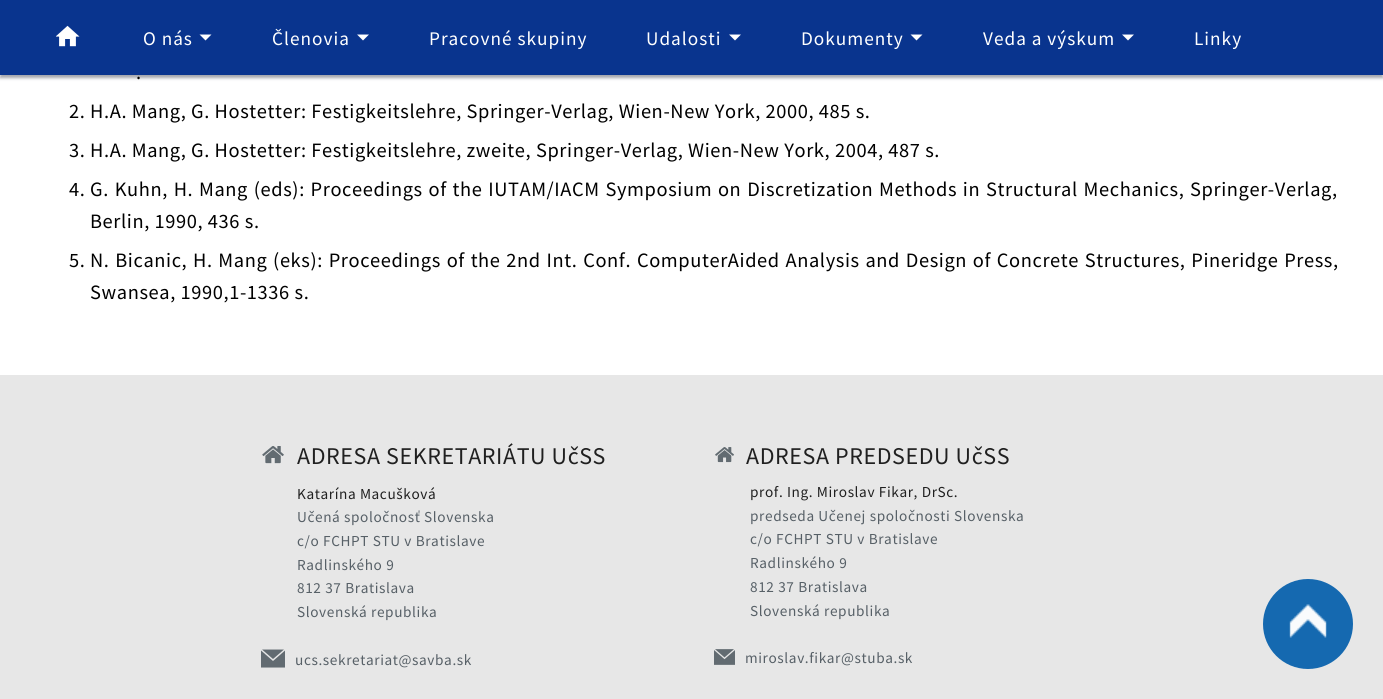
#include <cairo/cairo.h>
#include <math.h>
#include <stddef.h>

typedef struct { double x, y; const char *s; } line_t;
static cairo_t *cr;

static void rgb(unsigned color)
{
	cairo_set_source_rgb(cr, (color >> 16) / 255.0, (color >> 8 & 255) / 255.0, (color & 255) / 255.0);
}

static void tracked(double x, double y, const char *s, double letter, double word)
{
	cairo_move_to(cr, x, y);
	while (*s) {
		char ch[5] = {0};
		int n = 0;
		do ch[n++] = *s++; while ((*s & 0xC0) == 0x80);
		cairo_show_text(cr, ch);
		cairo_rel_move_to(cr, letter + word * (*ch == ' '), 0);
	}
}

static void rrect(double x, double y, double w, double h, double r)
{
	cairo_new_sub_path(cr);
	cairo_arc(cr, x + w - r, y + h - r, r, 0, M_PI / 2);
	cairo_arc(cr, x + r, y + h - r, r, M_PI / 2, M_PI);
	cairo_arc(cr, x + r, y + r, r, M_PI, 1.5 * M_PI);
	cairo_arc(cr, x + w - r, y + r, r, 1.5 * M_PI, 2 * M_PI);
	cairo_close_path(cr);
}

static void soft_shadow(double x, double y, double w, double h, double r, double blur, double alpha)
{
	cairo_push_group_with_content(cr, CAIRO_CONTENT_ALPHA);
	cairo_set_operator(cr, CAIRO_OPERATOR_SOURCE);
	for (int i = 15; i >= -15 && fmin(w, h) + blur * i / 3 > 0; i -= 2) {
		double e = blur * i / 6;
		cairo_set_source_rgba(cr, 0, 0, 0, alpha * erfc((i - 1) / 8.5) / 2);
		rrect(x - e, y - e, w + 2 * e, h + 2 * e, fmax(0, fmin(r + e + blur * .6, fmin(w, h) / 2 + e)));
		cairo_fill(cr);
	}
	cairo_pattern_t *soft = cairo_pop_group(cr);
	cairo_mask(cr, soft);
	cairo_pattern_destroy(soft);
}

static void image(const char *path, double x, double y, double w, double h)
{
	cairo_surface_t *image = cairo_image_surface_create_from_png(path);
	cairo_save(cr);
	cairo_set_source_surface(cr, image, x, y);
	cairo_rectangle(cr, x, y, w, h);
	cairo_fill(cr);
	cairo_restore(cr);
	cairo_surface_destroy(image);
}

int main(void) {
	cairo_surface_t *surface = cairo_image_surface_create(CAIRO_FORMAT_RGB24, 1383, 699);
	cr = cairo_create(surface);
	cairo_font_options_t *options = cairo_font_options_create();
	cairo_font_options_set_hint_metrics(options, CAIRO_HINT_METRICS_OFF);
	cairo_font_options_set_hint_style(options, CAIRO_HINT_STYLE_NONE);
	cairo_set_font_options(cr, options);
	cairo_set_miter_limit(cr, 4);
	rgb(0xffffff);
	cairo_paint(cr);
	rgb(0x7b7e88);
	soft_shadow(0, 3, 1383, 75, 0, 1.5, 0.7);
	rgb(0x09348e);
	cairo_rectangle(cr, 0, 0, 1383, 75);
	cairo_fill(cr);
	image("img/1.png", 56, 25, 24, 22);
	rgb(0xffffff);
	cairo_new_path(cr);
	cairo_move_to(cr, 199.5, 34.5);
	cairo_line_to(cr, 211.5, 34.5);
	cairo_line_to(cr, 205.5, 40.5);
	cairo_close_path(cr);
	cairo_fill(cr);
	cairo_new_path(cr);
	cairo_move_to(cr, 357, 34.5);
	cairo_line_to(cr, 369, 34.5);
	cairo_line_to(cr, 363, 40.5);
	cairo_close_path(cr);
	cairo_fill(cr);
	cairo_new_path(cr);
	cairo_move_to(cr, 729, 34.5);
	cairo_line_to(cr, 741, 34.5);
	cairo_line_to(cr, 735, 40.5);
	cairo_close_path(cr);
	cairo_fill(cr);
	cairo_new_path(cr);
	cairo_move_to(cr, 910.5, 34.5);
	cairo_line_to(cr, 922.5, 34.5);
	cairo_line_to(cr, 916.5, 40.5);
	cairo_close_path(cr);
	cairo_fill(cr);
	cairo_new_path(cr);
	cairo_move_to(cr, 1122, 34.5);
	cairo_line_to(cr, 1134, 34.5);
	cairo_line_to(cr, 1128, 40.5);
	cairo_close_path(cr);
	cairo_fill(cr);
	rgb(0xe7e7e7);
	cairo_rectangle(cr, 0, 375, 1383, 324);
	cairo_fill(cr);
	image("img/2.png", 262, 446, 22, 18);
	rgb(0x626b71);
	cairo_new_path(cr);
	cairo_move_to(cr, 285, 650.5);
	cairo_line_to(cr, 285, 667.5);
	cairo_line_to(cr, 261, 667.5);
	cairo_line_to(cr, 261, 650.5);
	cairo_line_to(cr, 273, 661);
	cairo_close_path(cr);
	cairo_move_to(cr, 284, 649.5);
	cairo_line_to(cr, 262, 649.5);
	cairo_line_to(cr, 273, 659);
	cairo_close_path(cr);
	cairo_fill(cr);
	image("img/3.png", 715, 447, 19, 16);
	image("img/4.png", 714, 649, 21, 16);
	rgb(0x1569b0);
	cairo_arc(cr, 1308, 624, 45, 0, 2 * M_PI);
	cairo_fill(cr);
	image("img/5.png", 1289, 604, 38, 34);
	cairo_select_font_face(cr, "Source Sans Pro", CAIRO_FONT_SLANT_NORMAL, CAIRO_FONT_WEIGHT_NORMAL);
	cairo_set_font_size(cr, 19.25);
	rgb(0xffffff);
	{
		static const line_t items[] = {
			{143, 45, "O nás"},
			{272, 45, "Členovia"},
			{429, 45, "Pracovné skupiny"},
			{646, 45, "Udalosti"},
			{801, 45, "Dokumenty"},
			{983, 45, "Veda a výskum"},
			{1194, 45, "Linky"},
		};
		for (size_t i = 0; i < sizeof items / sizeof *items; i++) {
			tracked(items[i].x, items[i].y, items[i].s, 1, 0);
		}
	}
	cairo_set_font_size(cr, 20.4);
	rgb(0x000000);
	{
		static const line_t items[] = {
			{136, 79, "."},
			{69, 118, "2. H.A. Mang, G. Hostetter: Festigkeitslehre, Springer-Verlag, Wien-New York, 2000, 485 s."},
			{69, 157, "3. H.A. Mang, G. Hostetter: Festigkeitslehre, zweite, Springer-Verlag, Wien-New York, 2004, 487 s."},
			{69, 196, "4."},
		};
		for (size_t i = 0; i < sizeof items / sizeof *items; i++) {
			tracked(items[i].x, items[i].y, items[i].s, 0.6, 0);
		}
	}
	tracked(90, 196, "G. Kuhn, H. Mang (eds): Proceedings of the IUTAM/IACM Symposium on Discretization Methods in Structural Mechanics, Springer-Verlag,", 0.6, 1.1);
	tracked(90, 228, "Berlin, 1990, 436 s.", 0.6, 0);
	tracked(69, 267, "5.", 0.6, 0);
	tracked(90, 267, "N. Bicanic, H. Mang (eks): Proceedings of the 2nd Int. Conf. ComputerAided Analysis and Design of Concrete Structures, Pineridge Press,", 0.6, 1.1);
	tracked(90, 299, "Swansea, 1990,1-1336 s.", 0.6, 0);
	cairo_set_font_size(cr, 24);
	rgb(0x202020);
	tracked(297, 464, "ADRESA SEKRETARIÁTU UčSS", 0.6, 0);
	cairo_set_font_size(cr, 15.25);
	tracked(297, 499, "Katarína Macušková", 0.6, 0);
	rgb(0x576067);
	{
		static const line_t items[] = {
			{297, 522, "Učená spoločnosť Slovenska"},
			{297, 546, "c/o FCHPT STU v Bratislave"},
			{297, 570, "Radlinského 9"},
			{297, 593, "812 37 Bratislava"},
			{297, 617, "Slovenská republika"},
			{295, 665, "ucs.sekretariat@savba.sk"},
		};
		for (size_t i = 0; i < sizeof items / sizeof *items; i++) {
			tracked(items[i].x, items[i].y, items[i].s, 0.6, 0);
		}
	}
	cairo_set_font_size(cr, 24);
	rgb(0x202020);
	tracked(746, 464, "ADRESA PREDSEDU UčSS", 0.6, 0);
	cairo_set_font_size(cr, 15.25);
	tracked(750, 497, "prof. Ing. Miroslav Fikar, DrSc.", 0.6, 0);
	rgb(0x576067);
	{
		static const line_t items[] = {
			{750, 521, "predseda Učenej spoločnosti Slovenska"},
			{750, 544, "c/o FCHPT STU v Bratislave"},
			{750, 568, "Radlinského 9"},
			{750, 592, "812 37 Bratislava"},
			{750, 616, "Slovenská republika"},
			{745, 663, "miroslav.fikar@stuba.sk"},
		};
		for (size_t i = 0; i < sizeof items / sizeof *items; i++) {
			tracked(items[i].x, items[i].y, items[i].s, 0.6, 0);
		}
	}
	cairo_surface_write_to_png(surface, "page.png");
	cairo_font_options_destroy(options);
	cairo_destroy(cr);
	cairo_surface_destroy(surface);
	return 0;
}
